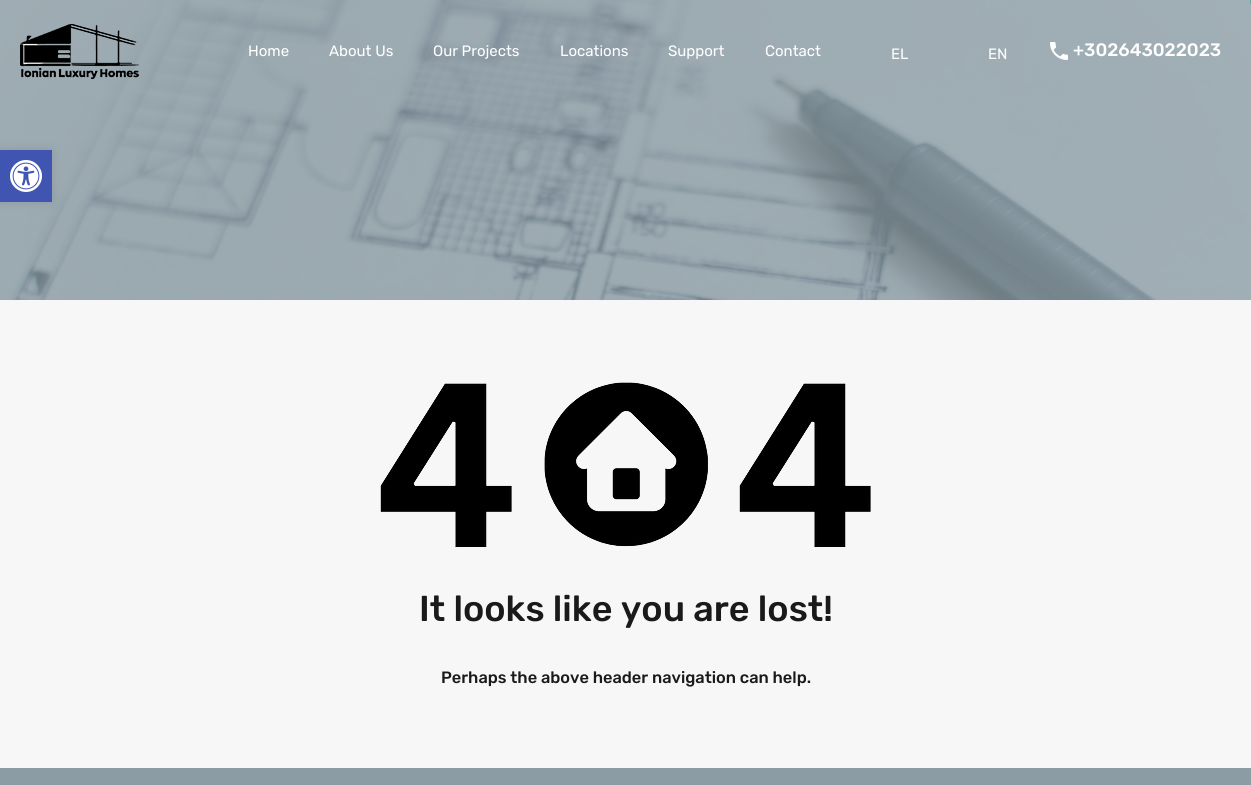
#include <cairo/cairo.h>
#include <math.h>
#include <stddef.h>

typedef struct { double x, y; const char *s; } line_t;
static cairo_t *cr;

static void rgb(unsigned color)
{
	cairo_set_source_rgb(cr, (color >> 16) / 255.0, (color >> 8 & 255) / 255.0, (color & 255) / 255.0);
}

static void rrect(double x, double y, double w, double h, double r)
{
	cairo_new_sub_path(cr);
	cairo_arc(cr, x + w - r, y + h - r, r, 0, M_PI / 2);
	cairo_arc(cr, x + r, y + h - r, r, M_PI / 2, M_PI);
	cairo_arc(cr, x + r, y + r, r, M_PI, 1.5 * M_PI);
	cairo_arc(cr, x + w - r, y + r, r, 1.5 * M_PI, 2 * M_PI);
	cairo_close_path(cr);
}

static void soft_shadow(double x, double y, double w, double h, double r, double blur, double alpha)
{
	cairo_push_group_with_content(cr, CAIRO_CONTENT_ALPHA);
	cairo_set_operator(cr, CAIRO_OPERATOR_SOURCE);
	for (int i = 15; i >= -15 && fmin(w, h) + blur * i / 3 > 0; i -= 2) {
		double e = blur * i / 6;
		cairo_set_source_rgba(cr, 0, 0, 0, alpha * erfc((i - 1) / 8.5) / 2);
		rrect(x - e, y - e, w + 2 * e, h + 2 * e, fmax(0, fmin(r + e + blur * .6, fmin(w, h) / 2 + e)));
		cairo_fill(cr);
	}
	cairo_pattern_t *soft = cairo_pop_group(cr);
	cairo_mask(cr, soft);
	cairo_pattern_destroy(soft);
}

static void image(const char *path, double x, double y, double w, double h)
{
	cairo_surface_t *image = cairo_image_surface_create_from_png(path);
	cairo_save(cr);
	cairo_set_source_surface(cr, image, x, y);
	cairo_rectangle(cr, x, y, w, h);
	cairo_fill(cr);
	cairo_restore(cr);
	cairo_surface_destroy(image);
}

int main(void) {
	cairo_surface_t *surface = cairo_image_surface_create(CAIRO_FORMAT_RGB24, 1251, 785);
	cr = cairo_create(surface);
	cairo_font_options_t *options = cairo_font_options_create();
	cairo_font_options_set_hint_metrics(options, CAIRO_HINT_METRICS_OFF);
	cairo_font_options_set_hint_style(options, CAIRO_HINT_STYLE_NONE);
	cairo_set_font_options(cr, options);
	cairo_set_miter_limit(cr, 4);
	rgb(0xf7f7f7);
	cairo_paint(cr);
	image("img/2.png", 0, 0, 1251, 300);
	rgb(0x000000);
	soft_shadow(0, 150, 52, 52, 0, 5, 0.1);
	rgb(0x4054b2);
	cairo_rectangle(cr, 0, 150, 52, 52);
	cairo_fill(cr);
	image("img/1.png", 10, 160, 32, 32);
	cairo_new_path(cr);
	cairo_move_to(cr, 1250.5, 2);
	cairo_line_to(cr, 1251, 2);
	rgb(0x1ea69a);
	cairo_set_line_width(cr, 3.8);
	cairo_stroke(cr);
	image("img/3.png", 20, 24, 119, 55);
	image("img/4.png", 1050, 42, 18, 18);
	image("img/5.png", 380, 382, 491, 165);
	rgb(0x8b9ca5);
	cairo_rectangle(cr, 0, 768, 1251, 17);
	cairo_fill(cr);
	cairo_select_font_face(cr, "Rubik", CAIRO_FONT_SLANT_NORMAL, CAIRO_FONT_WEIGHT_NORMAL);
	cairo_set_font_size(cr, 15);
	rgb(0xffffff);
	{
		static const line_t items[] = {
			{248, 56, "Home"},
			{329, 56, "About Us"},
			{433, 56, "Our Projects"},
			{560, 56, "Locations"},
			{668, 56, "Support"},
			{765, 56, "Contact"},
			{891, 59, "EL"},
			{988, 59, "EN"},
		};
		for (size_t i = 0; i < sizeof items / sizeof *items; i++) {
			cairo_move_to(cr, items[i].x, items[i].y);
			cairo_show_text(cr, items[i].s);
		}
	}
	cairo_select_font_face(cr, "Rubik Medium", CAIRO_FONT_SLANT_NORMAL, CAIRO_FONT_WEIGHT_NORMAL);
	cairo_set_font_size(cr, 18);
	cairo_move_to(cr, 1073, 56);
	cairo_show_text(cr, "+302643022023");
	cairo_set_font_size(cr, 36);
	rgb(0x1a1a1a);
	cairo_move_to(cr, 419, 621);
	cairo_show_text(cr, "It looks like you are lost!");
	cairo_set_font_size(cr, 16.4);
	cairo_move_to(cr, 441, 683);
	cairo_show_text(cr, "Perhaps the above header navigation can help.");
	cairo_surface_write_to_png(surface, "page.png");
	cairo_font_options_destroy(options);
	cairo_destroy(cr);
	cairo_surface_destroy(surface);
	return 0;
}
